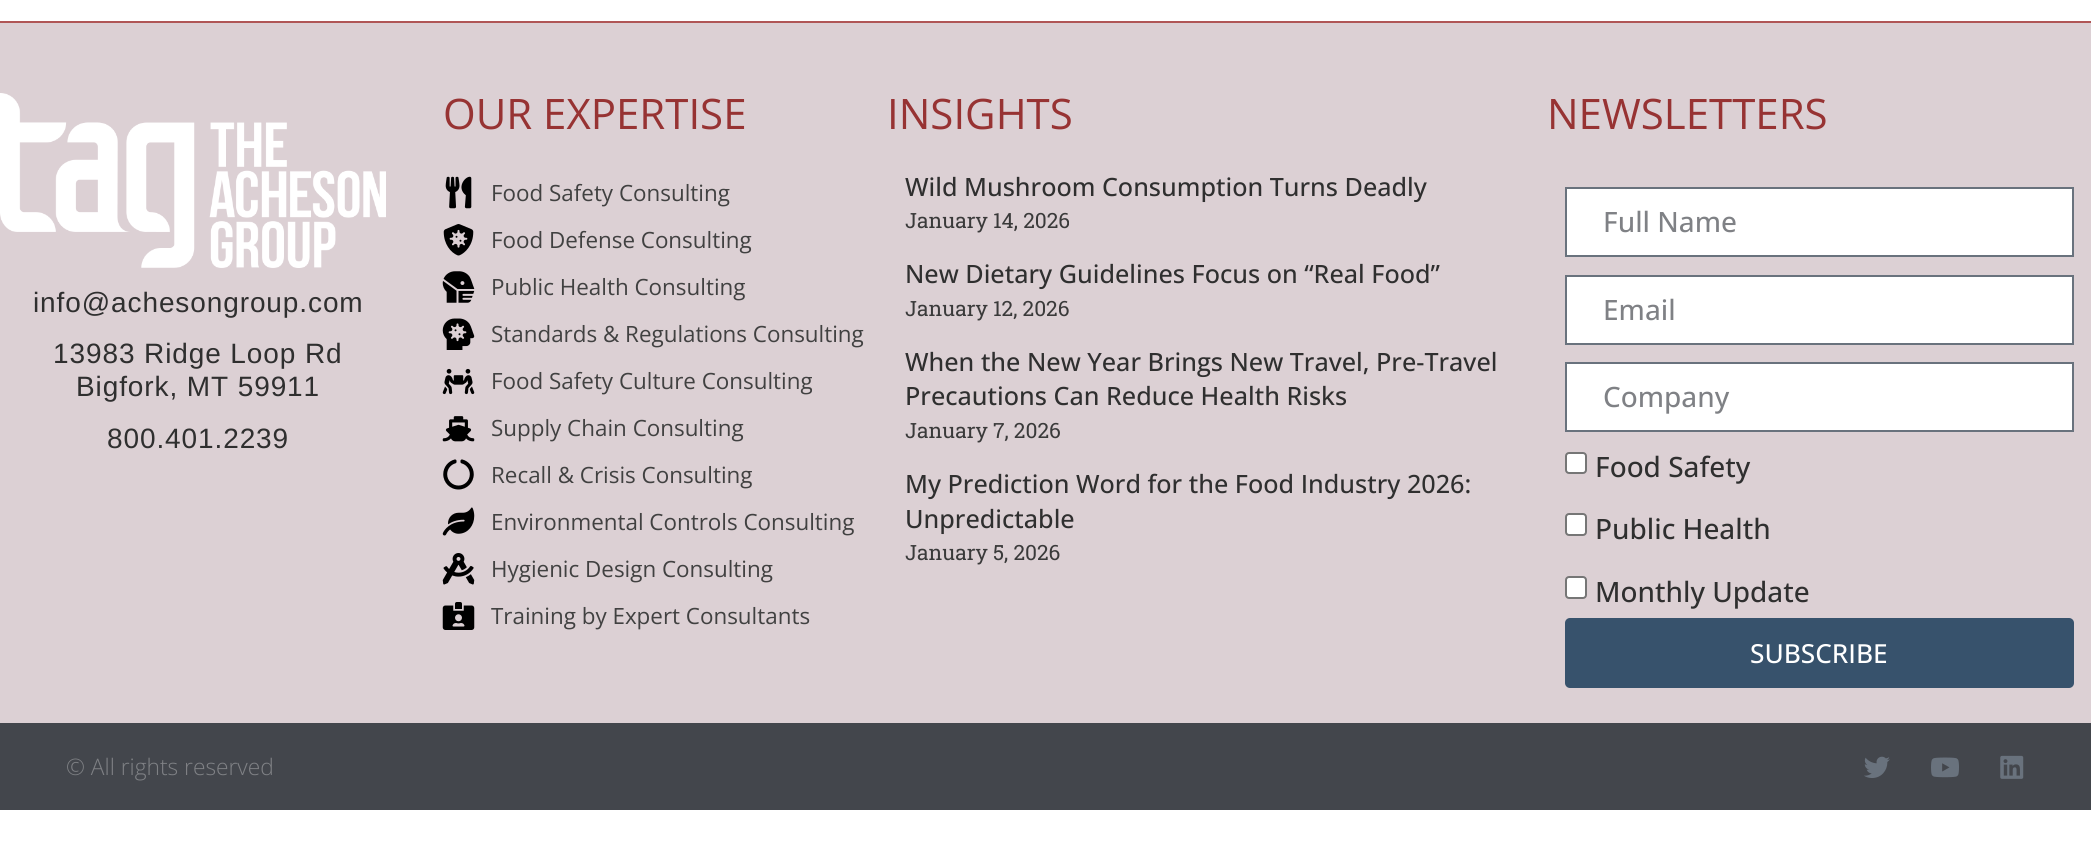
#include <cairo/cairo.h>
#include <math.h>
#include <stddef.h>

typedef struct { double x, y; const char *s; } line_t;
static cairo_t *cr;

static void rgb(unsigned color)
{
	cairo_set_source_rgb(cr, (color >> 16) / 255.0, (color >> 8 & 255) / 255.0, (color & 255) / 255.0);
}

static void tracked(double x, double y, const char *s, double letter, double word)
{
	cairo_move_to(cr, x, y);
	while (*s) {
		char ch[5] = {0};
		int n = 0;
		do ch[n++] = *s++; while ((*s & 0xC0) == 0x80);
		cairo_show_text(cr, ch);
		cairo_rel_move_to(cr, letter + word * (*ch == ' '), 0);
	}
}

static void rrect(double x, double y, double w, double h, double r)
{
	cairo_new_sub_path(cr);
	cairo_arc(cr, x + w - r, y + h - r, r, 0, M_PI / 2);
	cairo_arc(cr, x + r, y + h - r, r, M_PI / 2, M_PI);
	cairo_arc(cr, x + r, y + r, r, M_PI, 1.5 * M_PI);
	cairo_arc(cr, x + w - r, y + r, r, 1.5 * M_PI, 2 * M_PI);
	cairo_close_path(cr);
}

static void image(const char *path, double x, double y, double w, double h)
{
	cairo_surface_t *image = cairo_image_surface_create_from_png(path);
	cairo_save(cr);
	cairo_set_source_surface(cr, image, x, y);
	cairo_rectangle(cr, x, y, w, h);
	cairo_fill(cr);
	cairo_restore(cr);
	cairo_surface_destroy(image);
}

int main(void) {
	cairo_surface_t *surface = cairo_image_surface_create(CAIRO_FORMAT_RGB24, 2091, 844);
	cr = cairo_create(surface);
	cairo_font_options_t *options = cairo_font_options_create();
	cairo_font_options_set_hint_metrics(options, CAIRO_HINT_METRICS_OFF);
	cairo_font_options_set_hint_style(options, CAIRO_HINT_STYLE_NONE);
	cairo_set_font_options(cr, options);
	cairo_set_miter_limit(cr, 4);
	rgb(0xffffff);
	cairo_paint(cr);
	rgb(0xdcd0d4);
	cairo_rectangle(cr, 0, 23, 2091, 700);
	cairo_fill(cr);
	rgb(0xb05656);
	cairo_rectangle(cr, 0, 21, 2091, 2);
	cairo_fill(cr);
	image("img/1.png", 0, 93, 386, 175);
	image("img/2.png", 445, 176, 27, 33);
	image("img/3.png", 443, 224, 31, 32);
	image("img/4.png", 442, 271, 33, 32);
	image("img/5.png", 442, 318, 33, 32);
	image("img/6.png", 442, 368, 33, 27);
	image("img/7.png", 442, 416, 33, 26);
	image("img/8.png", 443, 459, 31, 31);
	image("img/9.png", 442, 507, 33, 29);
	image("img/10.png", 442, 553, 33, 32);
	image("img/11.png", 442, 602, 33, 28);
	rgb(0xffffff);
	cairo_rectangle(cr, 1566, 188, 507, 68);
	cairo_fill_preserve(cr);
	rgb(0x69727d);
	cairo_stroke(cr);
	rgb(0xffffff);
	cairo_rectangle(cr, 1566, 276, 507, 68);
	cairo_fill_preserve(cr);
	rgb(0x69727d);
	cairo_stroke(cr);
	rgb(0xffffff);
	cairo_rectangle(cr, 1566, 363, 507, 68);
	cairo_fill_preserve(cr);
	rgb(0x69727d);
	cairo_stroke(cr);
	rgb(0xffffff);
	rrect(1566, 453, 20, 20, 3);
	cairo_fill_preserve(cr);
	rgb(0x767676);
	cairo_stroke(cr);
	rgb(0xffffff);
	rrect(1566, 514, 20, 21, 3);
	cairo_fill_preserve(cr);
	rgb(0x767676);
	cairo_stroke(cr);
	rgb(0xffffff);
	rrect(1566, 577, 20, 21, 3);
	cairo_fill_preserve(cr);
	rgb(0x767676);
	cairo_stroke(cr);
	rgb(0x37526c);
	rrect(1565, 618, 509, 70, 5);
	cairo_fill(cr);
	rgb(0x43464c);
	cairo_rectangle(cr, 0, 723, 2091, 87);
	cairo_fill(cr);
	image("img/12.png", 1864, 756, 26, 22);
	image("img/13.png", 1931, 757, 28, 21);
	image("img/14.png", 2000, 755, 24, 24);
	cairo_select_font_face(cr, "Liberation Sans", CAIRO_FONT_SLANT_NORMAL, CAIRO_FONT_WEIGHT_NORMAL);
	cairo_set_font_size(cr, 28);
	rgb(0x2f2f2f);
	{
		static const line_t items[] = {
			{33, 312, "info@achesongroup.com"},
			{53, 363, "13983 Ridge Loop Rd"},
			{76, 396, "Bigfork, MT 59911"},
			{107, 448, "800.401.2239"},
		};
		for (size_t i = 0; i < sizeof items / sizeof *items; i++) {
			tracked(items[i].x, items[i].y, items[i].s, 0.9, 0);
		}
	}
	cairo_select_font_face(cr, "Open Sans", CAIRO_FONT_SLANT_NORMAL, CAIRO_FONT_WEIGHT_NORMAL);
	cairo_set_font_size(cr, 42);
	rgb(0x973333);
	cairo_move_to(cr, 443, 129);
	cairo_show_text(cr, "OUR EXPERTISE");
	cairo_set_font_size(cr, 22.4);
	rgb(0x414141);
	{
		static const line_t items[] = {
			{491, 201, "Food Safety Consulting"},
			{491, 248, "Food Defense Consulting"},
			{491, 295, "Public Health Consulting"},
			{491, 342, "Standards & Regulations Consulting"},
			{491, 389, "Food Safety Culture Consulting"},
			{491, 436, "Supply Chain Consulting"},
			{491, 483, "Recall & Crisis Consulting"},
			{491, 530, "Environmental Controls Consulting"},
			{491, 577, "Hygienic Design Consulting"},
			{491, 624, "Training by Expert Consultants"},
		};
		for (size_t i = 0; i < sizeof items / sizeof *items; i++) {
			cairo_move_to(cr, items[i].x, items[i].y);
			cairo_show_text(cr, items[i].s);
		}
	}
	cairo_set_font_size(cr, 42);
	rgb(0x973333);
	cairo_move_to(cr, 887, 129);
	cairo_show_text(cr, "INSIGHTS");
	cairo_select_font_face(cr, "Open Sans Medium", CAIRO_FONT_SLANT_NORMAL, CAIRO_FONT_WEIGHT_NORMAL);
	cairo_set_font_size(cr, 25.2);
	rgb(0x2f2f2f);
	cairo_move_to(cr, 905, 196);
	cairo_show_text(cr, "Wild Mushroom Consumption Turns Deadly");
	cairo_select_font_face(cr, "Roboto Slab", CAIRO_FONT_SLANT_NORMAL, CAIRO_FONT_WEIGHT_NORMAL);
	cairo_set_font_size(cr, 21);
	rgb(0x3a3a3a);
	cairo_move_to(cr, 905, 228);
	cairo_show_text(cr, "January 14, 2026");
	cairo_select_font_face(cr, "Open Sans Medium", CAIRO_FONT_SLANT_NORMAL, CAIRO_FONT_WEIGHT_NORMAL);
	cairo_set_font_size(cr, 25.2);
	rgb(0x2f2f2f);
	cairo_move_to(cr, 905, 283);
	cairo_show_text(cr, "New Dietary Guidelines Focus on “Real Food”");
	cairo_select_font_face(cr, "Roboto Slab", CAIRO_FONT_SLANT_NORMAL, CAIRO_FONT_WEIGHT_NORMAL);
	cairo_set_font_size(cr, 21);
	rgb(0x3a3a3a);
	cairo_move_to(cr, 905, 316);
	cairo_show_text(cr, "January 12, 2026");
	cairo_select_font_face(cr, "Open Sans Medium", CAIRO_FONT_SLANT_NORMAL, CAIRO_FONT_WEIGHT_NORMAL);
	cairo_set_font_size(cr, 25.2);
	rgb(0x2f2f2f);
	cairo_move_to(cr, 905, 371);
	cairo_show_text(cr, "When the New Year Brings New Travel, Pre-Travel");
	cairo_move_to(cr, 905, 405);
	cairo_show_text(cr, "Precautions Can Reduce Health Risks");
	cairo_select_font_face(cr, "Roboto Slab", CAIRO_FONT_SLANT_NORMAL, CAIRO_FONT_WEIGHT_NORMAL);
	cairo_set_font_size(cr, 21);
	rgb(0x3a3a3a);
	cairo_move_to(cr, 905, 438);
	cairo_show_text(cr, "January 7, 2026");
	cairo_select_font_face(cr, "Open Sans Medium", CAIRO_FONT_SLANT_NORMAL, CAIRO_FONT_WEIGHT_NORMAL);
	cairo_set_font_size(cr, 25.2);
	rgb(0x2f2f2f);
	cairo_move_to(cr, 905, 493);
	cairo_show_text(cr, "My Prediction Word for the Food Industry 2026:");
	cairo_move_to(cr, 905, 528);
	cairo_show_text(cr, "Unpredictable");
	cairo_select_font_face(cr, "Roboto Slab", CAIRO_FONT_SLANT_NORMAL, CAIRO_FONT_WEIGHT_NORMAL);
	cairo_set_font_size(cr, 21);
	rgb(0x3a3a3a);
	cairo_move_to(cr, 905, 560);
	cairo_show_text(cr, "January 5, 2026");
	cairo_select_font_face(cr, "Open Sans", CAIRO_FONT_SLANT_NORMAL, CAIRO_FONT_WEIGHT_NORMAL);
	cairo_set_font_size(cr, 42);
	rgb(0x973333);
	cairo_move_to(cr, 1547, 129);
	cairo_show_text(cr, "NEWSLETTERS");
	cairo_select_font_face(cr, "Open Sans Medium", CAIRO_FONT_SLANT_NORMAL, CAIRO_FONT_WEIGHT_NORMAL);
	cairo_set_font_size(cr, 28);
	rgb(0x7f8185);
	{
		static const line_t items[] = {
			{1603, 232, "Full Name"},
			{1603, 320, "Email"},
			{1603, 407, "Company"},
		};
		for (size_t i = 0; i < sizeof items / sizeof *items; i++) {
			cairo_move_to(cr, items[i].x, items[i].y);
			cairo_show_text(cr, items[i].s);
		}
	}
	rgb(0x2f2f2f);
	{
		static const line_t items[] = {
			{1595, 477, "Food Safety"},
			{1595, 539, "Public Health"},
			{1595, 602, "Monthly Update"},
		};
		for (size_t i = 0; i < sizeof items / sizeof *items; i++) {
			cairo_move_to(cr, items[i].x, items[i].y);
			cairo_show_text(cr, items[i].s);
		}
	}
	cairo_set_font_size(cr, 26.25);
	rgb(0xffffff);
	cairo_move_to(cr, 1750, 663);
	cairo_show_text(cr, "SUBSCRIBE");
	cairo_select_font_face(cr, "Open Sans Light", CAIRO_FONT_SLANT_NORMAL, CAIRO_FONT_WEIGHT_NORMAL);
	cairo_set_font_size(cr, 22.75);
	rgb(0x7f8185);
	cairo_move_to(cr, 66, 775);
	cairo_show_text(cr, "© All rights reserved");
	cairo_surface_write_to_png(surface, "page.png");
	cairo_font_options_destroy(options);
	cairo_destroy(cr);
	cairo_surface_destroy(surface);
	return 0;
}
